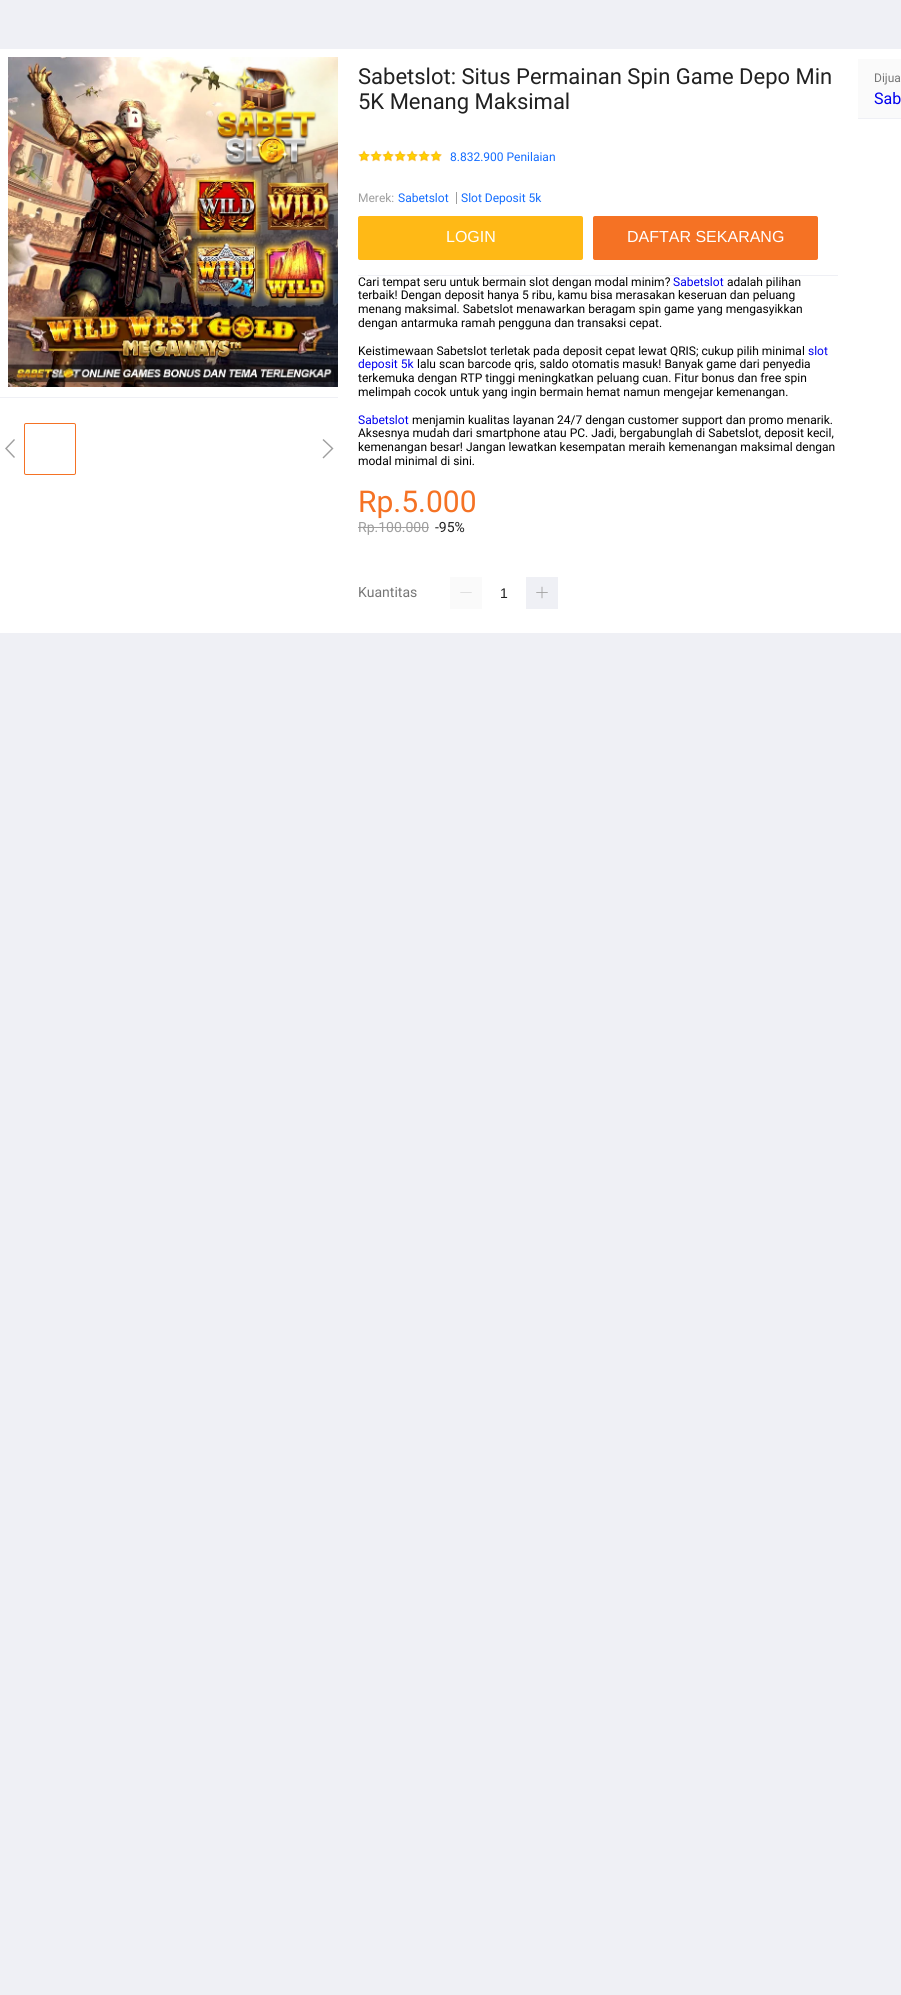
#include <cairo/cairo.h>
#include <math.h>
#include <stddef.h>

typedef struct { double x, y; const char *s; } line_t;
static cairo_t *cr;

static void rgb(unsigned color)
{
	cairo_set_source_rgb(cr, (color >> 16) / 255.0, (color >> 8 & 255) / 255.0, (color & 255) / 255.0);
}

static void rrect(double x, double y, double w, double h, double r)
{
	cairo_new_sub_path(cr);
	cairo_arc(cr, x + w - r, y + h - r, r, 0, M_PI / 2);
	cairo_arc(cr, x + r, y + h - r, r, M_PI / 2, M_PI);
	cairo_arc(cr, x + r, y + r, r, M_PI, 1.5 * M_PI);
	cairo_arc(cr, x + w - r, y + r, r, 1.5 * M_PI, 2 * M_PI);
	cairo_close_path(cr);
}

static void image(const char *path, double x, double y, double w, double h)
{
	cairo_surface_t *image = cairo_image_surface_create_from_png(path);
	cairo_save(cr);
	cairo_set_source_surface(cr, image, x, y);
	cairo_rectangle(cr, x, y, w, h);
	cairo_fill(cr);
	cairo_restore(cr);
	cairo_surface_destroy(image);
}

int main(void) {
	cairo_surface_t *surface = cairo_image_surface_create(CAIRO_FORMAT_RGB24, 901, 1995);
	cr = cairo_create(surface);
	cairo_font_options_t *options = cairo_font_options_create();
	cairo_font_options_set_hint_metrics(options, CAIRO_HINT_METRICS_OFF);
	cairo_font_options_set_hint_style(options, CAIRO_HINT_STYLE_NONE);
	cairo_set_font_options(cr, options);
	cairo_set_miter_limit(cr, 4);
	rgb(0xeff0f5);
	cairo_paint(cr);
	rgb(0xffffff);
	cairo_rectangle(cr, 0, 49, 901, 584);
	cairo_fill(cr);
	rgb(0xeff0f5);
	cairo_rectangle(cr, 0, 397, 338, 1);
	cairo_fill(cr);
	image("img/1.png", 8, 57, 330, 330);
	rgb(0x9e9e9e);
	cairo_new_path(cr);
	cairo_move_to(cr, 15, 457);
	cairo_line_to(cr, 7, 448.5);
	cairo_line_to(cr, 15, 440);
	cairo_line_to(cr, 14, 439);
	cairo_line_to(cr, 5, 448.5);
	cairo_line_to(cr, 14, 458);
	cairo_close_path(cr);
	cairo_fill(cr);
	rrect(24.5, 423.5, 51, 51, 1.5);
	rgb(0xf57224);
	cairo_set_line_width(cr, 1);
	cairo_stroke(cr);
	rgb(0x9e9e9e);
	cairo_new_path(cr);
	cairo_move_to(cr, 323.5, 458.5);
	cairo_line_to(cr, 322.5, 457.5);
	cairo_line_to(cr, 331.5, 448.5);
	cairo_line_to(cr, 322.5, 440);
	cairo_line_to(cr, 323.5, 439);
	cairo_line_to(cr, 333.5, 448.5);
	cairo_close_path(cr);
	cairo_fill(cr);
	image("img/2.png", 358, 150, 12, 12);
	image("img/2.png", 370, 150, 12, 12);
	image("img/2.png", 382, 150, 12, 12);
	image("img/2.png", 394, 150, 12, 12);
	image("img/2.png", 406, 150, 12, 12);
	image("img/2.png", 418, 150, 12, 12);
	image("img/2.png", 430, 150, 12, 12);
	rgb(0xeff0f5);
	cairo_rectangle(cr, 358, 275, 480, 1);
	cairo_fill(cr);
	rgb(0x9e9e9e);
	cairo_rectangle(cr, 456, 192, 1, 12);
	cairo_fill(cr);
	rgb(0xffb916);
	rrect(358, 216, 225, 44, 2);
	cairo_fill(cr);
	rgb(0xf57224);
	rrect(593, 216, 225, 44, 2);
	cairo_fill(cr);
	rgb(0x9e9e9e);
	cairo_rectangle(cr, 358, 527, 71, 1);
	cairo_fill(cr);
	rgb(0xfafafa);
	cairo_rectangle(cr, 450, 577, 32, 32);
	cairo_fill(cr);
	image("img/3.png", 460, 592, 12, 1);
	rgb(0xeff0f5);
	cairo_rectangle(cr, 526, 577, 32, 32);
	cairo_fill(cr);
	image("img/4.png", 536, 586, 12, 13);
	rgb(0xfafafa);
	cairo_rectangle(cr, 858, 59, 43, 59);
	cairo_fill(cr);
	rgb(0xeff0f5);
	cairo_rectangle(cr, 858, 118, 43, 1);
	cairo_fill(cr);
	cairo_select_font_face(cr, "Roboto", CAIRO_FONT_SLANT_NORMAL, CAIRO_FONT_WEIGHT_NORMAL);
	cairo_set_font_size(cr, 22);
	rgb(0x212121);
	cairo_move_to(cr, 358, 84);
	cairo_show_text(cr, "Sabetslot: Situs Permainan Spin Game Depo Min");
	cairo_move_to(cr, 358, 109);
	cairo_show_text(cr, "5K Menang Maksimal");
	cairo_set_font_size(cr, 12);
	rgb(0x136cff);
	cairo_move_to(cr, 450, 161);
	cairo_show_text(cr, "8.832.900 Penilaian");
	rgb(0x9e9e9e);
	cairo_move_to(cr, 358, 202);
	cairo_show_text(cr, "Merek:");
	rgb(0x136cff);
	cairo_move_to(cr, 398, 202);
	cairo_show_text(cr, "Sabetslot");
	cairo_move_to(cr, 461, 202);
	cairo_show_text(cr, "Slot Deposit 5k");
	cairo_select_font_face(cr, "Liberation Sans", CAIRO_FONT_SLANT_NORMAL, CAIRO_FONT_WEIGHT_NORMAL);
	cairo_set_font_size(cr, 16);
	rgb(0xffffff);
	cairo_move_to(cr, 446, 242);
	cairo_show_text(cr, "LOGIN");
	cairo_move_to(cr, 627, 242);
	cairo_show_text(cr, "DAFTAR SEKARANG");
	cairo_select_font_face(cr, "Roboto", CAIRO_FONT_SLANT_NORMAL, CAIRO_FONT_WEIGHT_NORMAL);
	cairo_set_font_size(cr, 12);
	rgb(0x000000);
	cairo_move_to(cr, 358, 286);
	cairo_show_text(cr, "Cari tempat seru untuk bermain slot dengan modal minim?");
	rgb(0x0000ee);
	cairo_move_to(cr, 673, 286);
	cairo_show_text(cr, "Sabetslot");
	rgb(0x000000);
	{
		static const line_t items[] = {
			{727, 286, "adalah pilihan"},
			{358, 299, "terbaik! Dengan deposit hanya 5 ribu, kamu bisa merasakan keseruan dan peluang"},
			{358, 313, "menang maksimal. Sabetslot menawarkan beragam spin game yang mengasyikkan"},
			{358, 327, "dengan antarmuka ramah pengguna dan transaksi cepat."},
			{358, 355, "Keistimewaan Sabetslot terletak pada deposit cepat lewat QRIS; cukup pilih minimal"},
		};
		for (size_t i = 0; i < sizeof items / sizeof *items; i++) {
			cairo_move_to(cr, items[i].x, items[i].y);
			cairo_show_text(cr, items[i].s);
		}
	}
	rgb(0x0000ee);
	cairo_move_to(cr, 808, 355);
	cairo_show_text(cr, "slot");
	cairo_move_to(cr, 358, 368);
	cairo_show_text(cr, "deposit 5k");
	rgb(0x000000);
	{
		static const line_t items[] = {
			{417, 368, "lalu scan barcode qris, saldo otomatis masuk! Banyak game dari penyedia"},
			{358, 382, "terkemuka dengan RTP tinggi meningkatkan peluang cuan. Fitur bonus dan free spin"},
			{358, 396, "melimpah cocok untuk yang ingin bermain hemat namun mengejar kemenangan."},
		};
		for (size_t i = 0; i < sizeof items / sizeof *items; i++) {
			cairo_move_to(cr, items[i].x, items[i].y);
			cairo_show_text(cr, items[i].s);
		}
	}
	rgb(0x0000ee);
	cairo_move_to(cr, 358, 424);
	cairo_show_text(cr, "Sabetslot");
	rgb(0x000000);
	{
		static const line_t items[] = {
			{412, 424, "menjamin kualitas layanan 24/7 dengan customer support dan promo menarik."},
			{358, 437, "Aksesnya mudah dari smartphone atau PC. Jadi, bergabunglah di Sabetslot, deposit kecil,"},
			{358, 451, "kemenangan besar! Jangan lewatkan kesempatan meraih kemenangan maksimal dengan"},
			{358, 465, "modal minimal di sini."},
		};
		for (size_t i = 0; i < sizeof items / sizeof *items; i++) {
			cairo_move_to(cr, items[i].x, items[i].y);
			cairo_show_text(cr, items[i].s);
		}
	}
	cairo_set_font_size(cr, 30);
	rgb(0xf57224);
	cairo_move_to(cr, 358, 512);
	cairo_show_text(cr, "Rp.5.000");
	cairo_set_font_size(cr, 14);
	rgb(0x9e9e9e);
	cairo_move_to(cr, 358, 532);
	cairo_show_text(cr, "Rp.100.000");
	rgb(0x212121);
	cairo_move_to(cr, 435, 532);
	cairo_show_text(cr, "-95%");
	rgb(0x757575);
	cairo_move_to(cr, 358, 597);
	cairo_show_text(cr, "Kuantitas");
	cairo_select_font_face(cr, "Liberation Sans", CAIRO_FONT_SLANT_NORMAL, CAIRO_FONT_WEIGHT_NORMAL);
	rgb(0x212121);
	cairo_move_to(cr, 500, 598);
	cairo_show_text(cr, "1");
	cairo_select_font_face(cr, "Roboto", CAIRO_FONT_SLANT_NORMAL, CAIRO_FONT_WEIGHT_NORMAL);
	cairo_set_font_size(cr, 12);
	rgb(0x757575);
	cairo_move_to(cr, 874, 82);
	cairo_show_text(cr, "Dijua");
	cairo_set_font_size(cr, 16);
	rgb(0x0000ee);
	cairo_move_to(cr, 874, 104);
	cairo_show_text(cr, "Sab");
	cairo_surface_write_to_png(surface, "page.png");
	cairo_font_options_destroy(options);
	cairo_destroy(cr);
	cairo_surface_destroy(surface);
	return 0;
}
